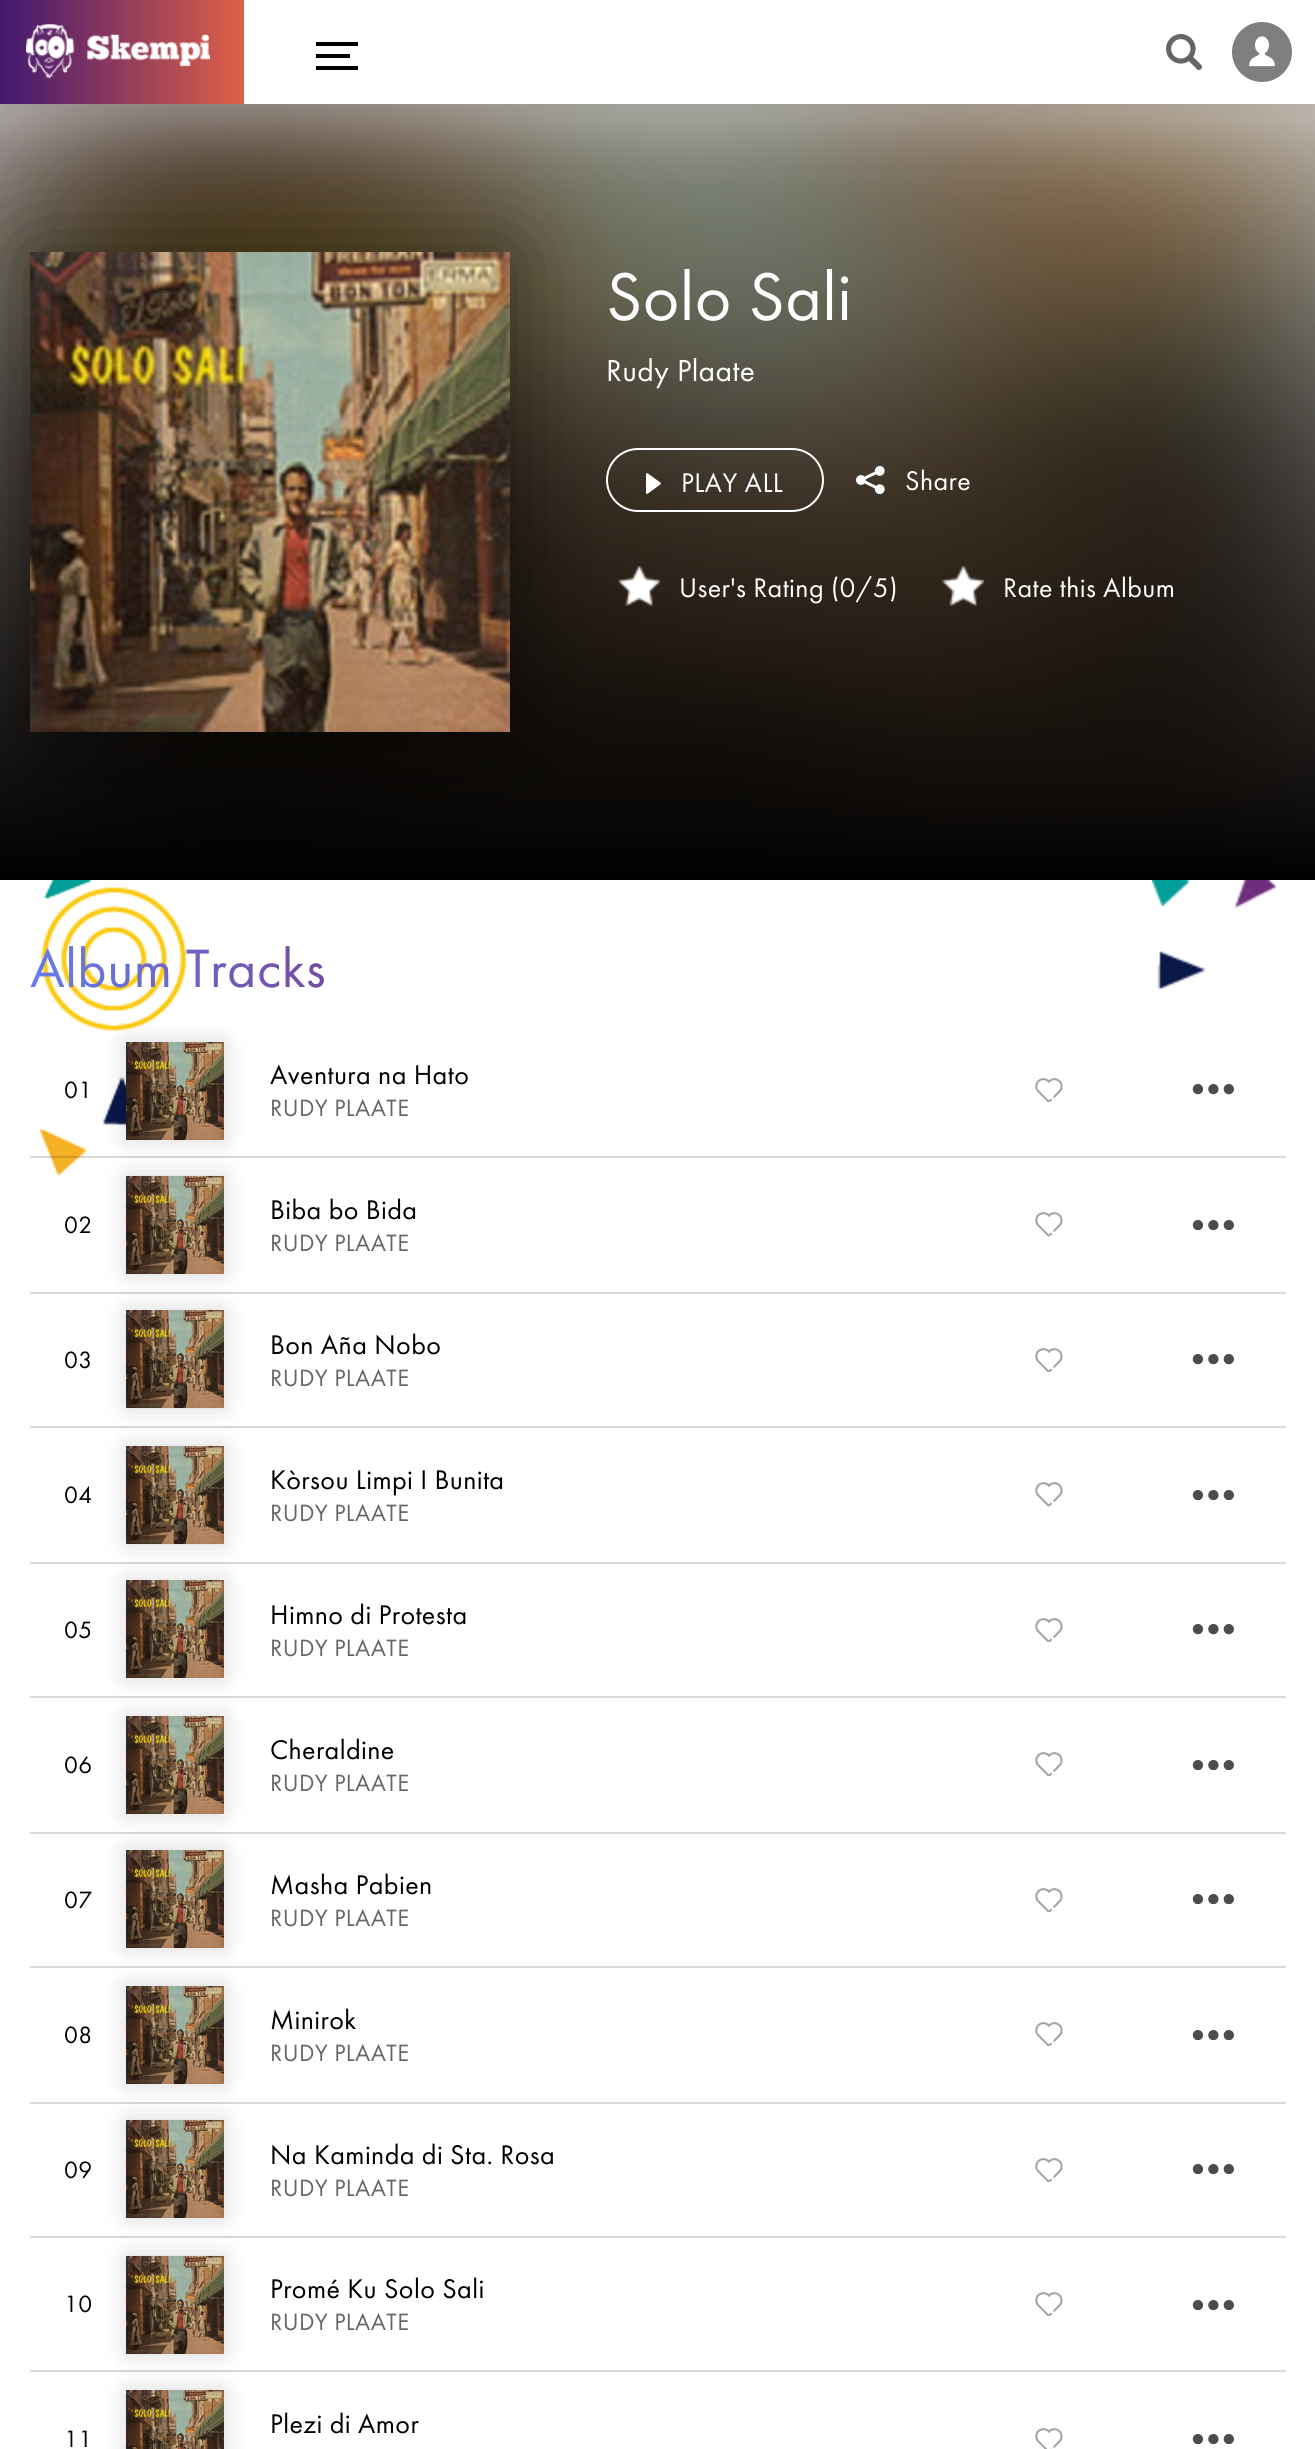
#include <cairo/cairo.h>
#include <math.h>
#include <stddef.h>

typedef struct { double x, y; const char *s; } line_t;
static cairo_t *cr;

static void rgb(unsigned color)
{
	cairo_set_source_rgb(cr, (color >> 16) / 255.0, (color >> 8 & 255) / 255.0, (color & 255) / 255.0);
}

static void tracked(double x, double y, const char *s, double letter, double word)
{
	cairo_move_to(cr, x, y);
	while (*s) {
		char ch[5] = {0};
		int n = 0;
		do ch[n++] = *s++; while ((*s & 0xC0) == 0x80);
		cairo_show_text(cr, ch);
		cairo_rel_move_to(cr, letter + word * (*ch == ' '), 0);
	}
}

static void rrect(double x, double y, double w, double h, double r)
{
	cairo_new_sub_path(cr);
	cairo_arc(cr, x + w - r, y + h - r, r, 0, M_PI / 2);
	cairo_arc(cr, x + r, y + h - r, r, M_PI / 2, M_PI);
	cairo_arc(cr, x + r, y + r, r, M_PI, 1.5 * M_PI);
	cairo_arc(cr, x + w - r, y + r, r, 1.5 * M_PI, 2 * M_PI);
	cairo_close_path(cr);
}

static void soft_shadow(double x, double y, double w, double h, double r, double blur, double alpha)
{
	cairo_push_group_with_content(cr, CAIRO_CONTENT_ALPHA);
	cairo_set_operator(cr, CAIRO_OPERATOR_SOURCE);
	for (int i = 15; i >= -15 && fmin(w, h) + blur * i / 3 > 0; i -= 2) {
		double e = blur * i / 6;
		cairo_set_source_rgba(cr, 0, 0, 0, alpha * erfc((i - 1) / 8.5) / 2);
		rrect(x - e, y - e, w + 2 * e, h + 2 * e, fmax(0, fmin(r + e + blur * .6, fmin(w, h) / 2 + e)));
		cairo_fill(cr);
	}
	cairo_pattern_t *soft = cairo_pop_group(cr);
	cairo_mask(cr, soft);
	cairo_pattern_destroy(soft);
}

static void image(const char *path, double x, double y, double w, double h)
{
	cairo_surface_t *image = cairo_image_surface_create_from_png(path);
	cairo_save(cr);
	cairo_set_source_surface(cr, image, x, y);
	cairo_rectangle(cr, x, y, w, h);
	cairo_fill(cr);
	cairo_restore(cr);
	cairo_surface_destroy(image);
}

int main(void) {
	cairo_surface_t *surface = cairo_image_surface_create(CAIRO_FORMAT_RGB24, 1315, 2449);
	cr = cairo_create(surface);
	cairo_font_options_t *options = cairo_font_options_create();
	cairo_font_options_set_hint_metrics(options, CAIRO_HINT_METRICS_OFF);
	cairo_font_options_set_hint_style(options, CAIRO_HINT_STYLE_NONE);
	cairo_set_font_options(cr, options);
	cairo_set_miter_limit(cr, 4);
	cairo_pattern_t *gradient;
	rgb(0xf4f4f4);
	cairo_paint(cr);
	image("img/4.png", 0, 104, 1315, 771);
	gradient = cairo_pattern_create_linear(658, 104, 658, 880);
	cairo_pattern_add_color_stop_rgba(gradient, 0, 0, 0, 0, 0.15);
	cairo_pattern_add_color_stop_rgba(gradient, 1, 0, 0, 0, 1);
	cairo_set_source(cr, gradient);
	cairo_pattern_destroy(gradient);
	cairo_rectangle(cr, 0, 104, 1315, 776);
	cairo_fill(cr);
	rgb(0x000000);
	soft_shadow(0, 6, 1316, 104, 0, 5, 0.05);
	rgb(0xffffff);
	cairo_rectangle(cr, 244, 0, 1071, 104);
	cairo_fill(cr);
	gradient = cairo_pattern_create_linear(0, 52, 244, 52);
	cairo_pattern_add_color_stop_rgba(gradient, 0, 0.255, 0.094, 0.443, 1);
	cairo_pattern_add_color_stop_rgba(gradient, 1, 0.871, 0.376, 0.278, 1);
	cairo_set_source(cr, gradient);
	cairo_pattern_destroy(gradient);
	cairo_rectangle(cr, 0, 0, 244, 104);
	cairo_fill(cr);
	image("img/1.png", 26, 24, 184, 54);
	rgb(0x000000);
	cairo_new_path(cr);
	cairo_move_to(cr, 316, 42);
	cairo_line_to(cr, 358, 42);
	cairo_line_to(cr, 358, 46);
	cairo_line_to(cr, 316, 46);
	cairo_close_path(cr);
	cairo_move_to(cr, 350, 58);
	cairo_line_to(cr, 316, 58);
	cairo_line_to(cr, 316, 54);
	cairo_line_to(cr, 350, 54);
	cairo_close_path(cr);
	cairo_fill(cr);
	cairo_rectangle(cr, 316, 66, 42, 4);
	cairo_fill(cr);
	image("img/2.png", 1166, 34, 36, 36);
	image("img/3.png", 1232, 22, 60, 60);
	rrect(607, 449, 216, 62, 31);
	rgb(0xffffff);
	cairo_stroke(cr);
	rgb(0x000000);
	soft_shadow(30, 252, 480, 480, 0, 45, 0.45);
	image("img/5.png", 30, 252, 480, 480);
	image("img/6.png", 646, 473, 15, 21);
	image("img/7.png", 856, 466, 29, 28);
	image("img/8.png", 618, 566, 42, 40);
	image("img/9.png", 942, 566, 42, 40);
	rgb(0xffffff);
	cairo_rectangle(cr, 0, 880, 1315, 1569);
	cairo_fill(cr);
	image("img/10.png", 40, 880, 146, 296);
	image("img/11.png", 40, 880, 146, 296);
	image("img/12.png", 1152, 880, 124, 110);
	cairo_set_source_rgba(cr, 0, 0, 0, 0.15);
	cairo_rectangle(cr, 30, 1156, 1256, 2);
	cairo_fill(cr);
	rgb(0x000000);
	soft_shadow(126, 1042, 98, 98, 0, 12, 0.15);
	image("img/13.png", 126, 1042, 98, 98);
	image("img/14.png", 1035, 1078, 28, 24);
	image("img/15.png", 1192, 1084, 42, 11);
	rgb(0xd9d9d9);
	cairo_rectangle(cr, 30, 1292, 1256, 2);
	cairo_fill(cr);
	rgb(0x000000);
	soft_shadow(126, 1176, 98, 98, 0, 12, 0.15);
	image("img/13.png", 126, 1176, 98, 98);
	image("img/16.png", 1035, 1212, 28, 25);
	image("img/17.png", 1192, 1220, 42, 10);
	rgb(0xd9d9d9);
	cairo_rectangle(cr, 30, 1426, 1256, 2);
	cairo_fill(cr);
	rgb(0x000000);
	soft_shadow(126, 1310, 98, 98, 0, 12, 0.15);
	image("img/13.png", 126, 1310, 98, 98);
	image("img/14.png", 1035, 1348, 28, 24);
	image("img/15.png", 1192, 1354, 42, 11);
	rgb(0xd9d9d9);
	cairo_rectangle(cr, 30, 1562, 1256, 2);
	cairo_fill(cr);
	rgb(0x000000);
	soft_shadow(126, 1446, 98, 98, 0, 12, 0.15);
	image("img/13.png", 126, 1446, 98, 98);
	image("img/16.png", 1035, 1482, 28, 25);
	image("img/17.png", 1192, 1490, 42, 10);
	rgb(0xd9d9d9);
	cairo_rectangle(cr, 30, 1696, 1256, 2);
	cairo_fill(cr);
	rgb(0x000000);
	soft_shadow(126, 1580, 98, 98, 0, 12, 0.15);
	image("img/13.png", 126, 1580, 98, 98);
	image("img/14.png", 1035, 1618, 28, 24);
	image("img/15.png", 1192, 1624, 42, 11);
	rgb(0xd9d9d9);
	cairo_rectangle(cr, 30, 1832, 1256, 2);
	cairo_fill(cr);
	rgb(0x000000);
	soft_shadow(126, 1716, 98, 98, 0, 12, 0.15);
	image("img/13.png", 126, 1716, 98, 98);
	image("img/14.png", 1035, 1752, 28, 24);
	image("img/17.png", 1192, 1760, 42, 10);
	rgb(0xd9d9d9);
	cairo_rectangle(cr, 30, 1966, 1256, 2);
	cairo_fill(cr);
	rgb(0x000000);
	soft_shadow(126, 1850, 98, 98, 0, 12, 0.15);
	image("img/13.png", 126, 1850, 98, 98);
	image("img/14.png", 1035, 1888, 28, 24);
	image("img/17.png", 1192, 1894, 42, 10);
	rgb(0xd9d9d9);
	cairo_rectangle(cr, 30, 2102, 1256, 2);
	cairo_fill(cr);
	rgb(0x000000);
	soft_shadow(126, 1986, 98, 98, 0, 12, 0.15);
	image("img/13.png", 126, 1986, 98, 98);
	image("img/14.png", 1035, 2022, 28, 24);
	image("img/17.png", 1192, 2030, 42, 10);
	rgb(0xd9d9d9);
	cairo_rectangle(cr, 30, 2236, 1256, 2);
	cairo_fill(cr);
	rgb(0x000000);
	soft_shadow(126, 2120, 98, 98, 0, 12, 0.15);
	image("img/13.png", 126, 2120, 98, 98);
	image("img/14.png", 1035, 2158, 28, 24);
	image("img/17.png", 1192, 2164, 42, 10);
	rgb(0xd9d9d9);
	cairo_rectangle(cr, 30, 2370, 1256, 2);
	cairo_fill(cr);
	rgb(0x000000);
	soft_shadow(126, 2256, 98, 98, 0, 12, 0.15);
	image("img/13.png", 126, 2256, 98, 98);
	image("img/14.png", 1035, 2292, 28, 24);
	image("img/17.png", 1192, 2300, 42, 10);
	soft_shadow(126, 2390, 98, 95, 0, 12, 0.15);
	image("img/18.png", 126, 2390, 98, 59);
	image("img/19.png", 1035, 2428, 28, 21);
	image("img/17.png", 1192, 2434, 42, 10);
	cairo_select_font_face(cr, "Futura PT", CAIRO_FONT_SLANT_NORMAL, CAIRO_FONT_WEIGHT_NORMAL);
	cairo_set_font_size(cr, 70);
	rgb(0xffffff);
	tracked(606, 320, "Solo Sali", 0.4, 0);
	cairo_set_font_size(cr, 31.5);
	tracked(606, 381, "Rudy Plaate", 0.4, 0);
	cairo_set_font_size(cr, 28);
	{
		static const line_t items[] = {
			{681, 492, "PLAY ALL"},
			{905, 490, "Share"},
			{679, 597, "User's Rating (0/5)"},
			{1003, 597, "Rate this Album"},
		};
		for (size_t i = 0; i < sizeof items / sizeof *items; i++) {
			tracked(items[i].x, items[i].y, items[i].s, 0.4, 0);
		}
	}
	cairo_set_font_size(cr, 56);
	gradient = cairo_pattern_create_linear(30, 968, 326, 968);
	cairo_pattern_add_color_stop_rgba(gradient, 0, 0.4, 0.494, 0.918, 1);
	cairo_pattern_add_color_stop_rgba(gradient, 1, 0.463, 0.294, 0.635, 1);
	cairo_set_source(cr, gradient);
	cairo_pattern_destroy(gradient);
	tracked(30, 987, "Album Tracks", 0.4, 0);
	cairo_set_font_size(cr, 24.5);
	rgb(0x000000);
	tracked(64, 1098, "01", 0.4, 0);
	cairo_set_font_size(cr, 28);
	tracked(270, 1084, "Aventura na Hato", 0.4, 0);
	cairo_set_font_size(cr, 24.5);
	rgb(0x666666);
	tracked(270, 1116, "RUDY PLAATE", 0.4, 0);
	rgb(0x000000);
	tracked(64, 1233, "02", 0.4, 0);
	cairo_set_font_size(cr, 28);
	tracked(270, 1219, "Biba bo Bida", 0.4, 0);
	cairo_set_font_size(cr, 24.5);
	rgb(0x666666);
	tracked(270, 1251, "RUDY PLAATE", 0.4, 0);
	rgb(0x000000);
	tracked(64, 1368, "03", 0.4, 0);
	cairo_set_font_size(cr, 28);
	tracked(270, 1354, "Bon Aña Nobo", 0.4, 0);
	cairo_set_font_size(cr, 24.5);
	rgb(0x666666);
	tracked(270, 1386, "RUDY PLAATE", 0.4, 0);
	rgb(0x000000);
	tracked(64, 1503, "04", 0.4, 0);
	cairo_set_font_size(cr, 28);
	tracked(270, 1489, "Kòrsou Limpi I Bunita", 0.4, 0);
	cairo_set_font_size(cr, 24.5);
	rgb(0x666666);
	tracked(270, 1521, "RUDY PLAATE", 0.4, 0);
	rgb(0x000000);
	tracked(64, 1638, "05", 0.4, 0);
	cairo_set_font_size(cr, 28);
	tracked(270, 1624, "Himno di Protesta", 0.4, 0);
	cairo_set_font_size(cr, 24.5);
	rgb(0x666666);
	tracked(270, 1656, "RUDY PLAATE", 0.4, 0);
	rgb(0x000000);
	tracked(64, 1773, "06", 0.4, 0);
	cairo_set_font_size(cr, 28);
	tracked(270, 1759, "Cheraldine", 0.4, 0);
	cairo_set_font_size(cr, 24.5);
	rgb(0x666666);
	tracked(270, 1791, "RUDY PLAATE", 0.4, 0);
	rgb(0x000000);
	tracked(64, 1908, "07", 0.4, 0);
	cairo_set_font_size(cr, 28);
	tracked(270, 1894, "Masha Pabien", 0.4, 0);
	cairo_set_font_size(cr, 24.5);
	rgb(0x666666);
	tracked(270, 1926, "RUDY PLAATE", 0.4, 0);
	rgb(0x000000);
	tracked(64, 2043, "08", 0.4, 0);
	cairo_set_font_size(cr, 28);
	tracked(270, 2029, "Minirok", 0.4, 0);
	cairo_set_font_size(cr, 24.5);
	rgb(0x666666);
	tracked(270, 2061, "RUDY PLAATE", 0.4, 0);
	rgb(0x000000);
	tracked(64, 2178, "09", 0.4, 0);
	cairo_set_font_size(cr, 28);
	tracked(270, 2164, "Na Kaminda di Sta. Rosa", 0.4, 0);
	cairo_set_font_size(cr, 24.5);
	rgb(0x666666);
	tracked(270, 2196, "RUDY PLAATE", 0.4, 0);
	rgb(0x000000);
	tracked(64, 2312, "10", 0.4, 0);
	cairo_set_font_size(cr, 28);
	tracked(270, 2298, "Promé Ku Solo Sali", 0.4, 0);
	cairo_set_font_size(cr, 24.5);
	rgb(0x666666);
	tracked(270, 2330, "RUDY PLAATE", 0.4, 0);
	cairo_set_font_size(cr, 28);
	rgb(0x000000);
	tracked(270, 2433, "Plezi di Amor", 0.4, 0);
	cairo_set_font_size(cr, 24.5);
	tracked(64, 2447, "11", 0.4, 0);
	cairo_surface_write_to_png(surface, "page.png");
	cairo_font_options_destroy(options);
	cairo_destroy(cr);
	cairo_surface_destroy(surface);
	return 0;
}
